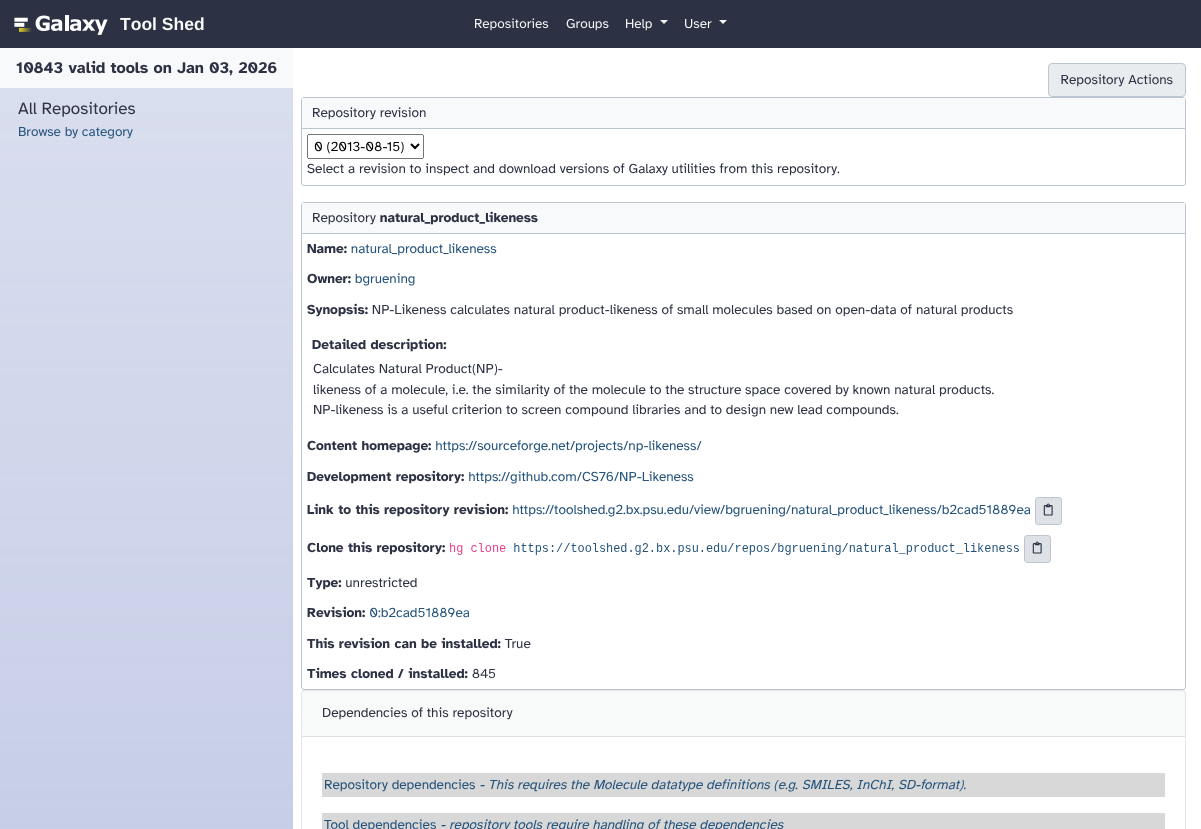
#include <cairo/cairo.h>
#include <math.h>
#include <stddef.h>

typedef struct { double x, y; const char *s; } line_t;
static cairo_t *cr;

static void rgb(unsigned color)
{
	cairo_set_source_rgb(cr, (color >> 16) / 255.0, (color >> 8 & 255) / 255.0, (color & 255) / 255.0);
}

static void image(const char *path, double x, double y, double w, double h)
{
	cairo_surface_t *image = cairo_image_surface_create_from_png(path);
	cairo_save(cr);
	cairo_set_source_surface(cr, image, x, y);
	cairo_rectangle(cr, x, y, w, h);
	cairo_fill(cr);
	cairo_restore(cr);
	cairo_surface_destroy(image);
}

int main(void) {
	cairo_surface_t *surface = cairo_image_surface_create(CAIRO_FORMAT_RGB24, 1201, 829);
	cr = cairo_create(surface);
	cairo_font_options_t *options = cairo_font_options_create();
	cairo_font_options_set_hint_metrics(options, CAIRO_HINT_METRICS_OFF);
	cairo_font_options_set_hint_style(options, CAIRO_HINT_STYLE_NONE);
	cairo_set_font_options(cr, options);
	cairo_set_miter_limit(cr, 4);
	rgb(0xffffff);
	cairo_paint(cr);
	rgb(0x2c3143);
	cairo_rectangle(cr, 0, 0, 1201, 48);
	cairo_fill(cr);
	image("img/1.png", 14, 15, 94, 20);
	rgb(0xf8f9fa);
	cairo_new_path(cr);
	cairo_move_to(cr, 660, 20);
	cairo_line_to(cr, 668, 20);
	cairo_line_to(cr, 664, 24);
	cairo_close_path(cr);
	cairo_fill(cr);
	cairo_new_path(cr);
	cairo_move_to(cr, 719, 20);
	cairo_line_to(cr, 727, 20);
	cairo_line_to(cr, 723, 24);
	cairo_close_path(cr);
	cairo_fill(cr);
	image("img/2.png", 0, 88, 293, 741);
	cairo_rectangle(cr, 0, 48, 293, 40);
	cairo_fill(cr);
	image("img/3.png", 301, 63, 885, 766);
	cairo_select_font_face(cr, "Liberation Sans", CAIRO_FONT_SLANT_NORMAL, CAIRO_FONT_WEIGHT_BOLD);
	cairo_set_font_size(cr, 17.5);
	cairo_move_to(cr, 120, 30);
	cairo_show_text(cr, "Tool Shed");
	cairo_select_font_face(cr, "Atkinson Hyperlegible", CAIRO_FONT_SLANT_NORMAL, CAIRO_FONT_WEIGHT_NORMAL);
	cairo_set_font_size(cr, 13.5);
	{
		static const line_t items[] = {
			{474, 28, "Repositories"},
			{566, 28, "Groups"},
			{625, 28, "Help"},
			{684, 28, "User"},
		};
		for (size_t i = 0; i < sizeof items / sizeof *items; i++) {
			cairo_move_to(cr, items[i].x, items[i].y);
			cairo_show_text(cr, items[i].s);
		}
	}
	cairo_select_font_face(cr, "Atkinson Hyperlegible", CAIRO_FONT_SLANT_NORMAL, CAIRO_FONT_WEIGHT_BOLD);
	cairo_set_font_size(cr, 16);
	rgb(0x2c3143);
	cairo_move_to(cr, 16, 73);
	cairo_show_text(cr, "10843 valid tools on Jan 03, 2026");
	cairo_select_font_face(cr, "Atkinson Hyperlegible", CAIRO_FONT_SLANT_NORMAL, CAIRO_FONT_WEIGHT_NORMAL);
	cairo_set_font_size(cr, 17);
	cairo_move_to(cr, 18, 114);
	cairo_show_text(cr, "All Repositories");
	cairo_set_font_size(cr, 13.5);
	rgb(0x25537b);
	cairo_move_to(cr, 18, 136);
	cairo_show_text(cr, "Browse by category");
	cairo_surface_write_to_png(surface, "page.png");
	cairo_font_options_destroy(options);
	cairo_destroy(cr);
	cairo_surface_destroy(surface);
	return 0;
}
